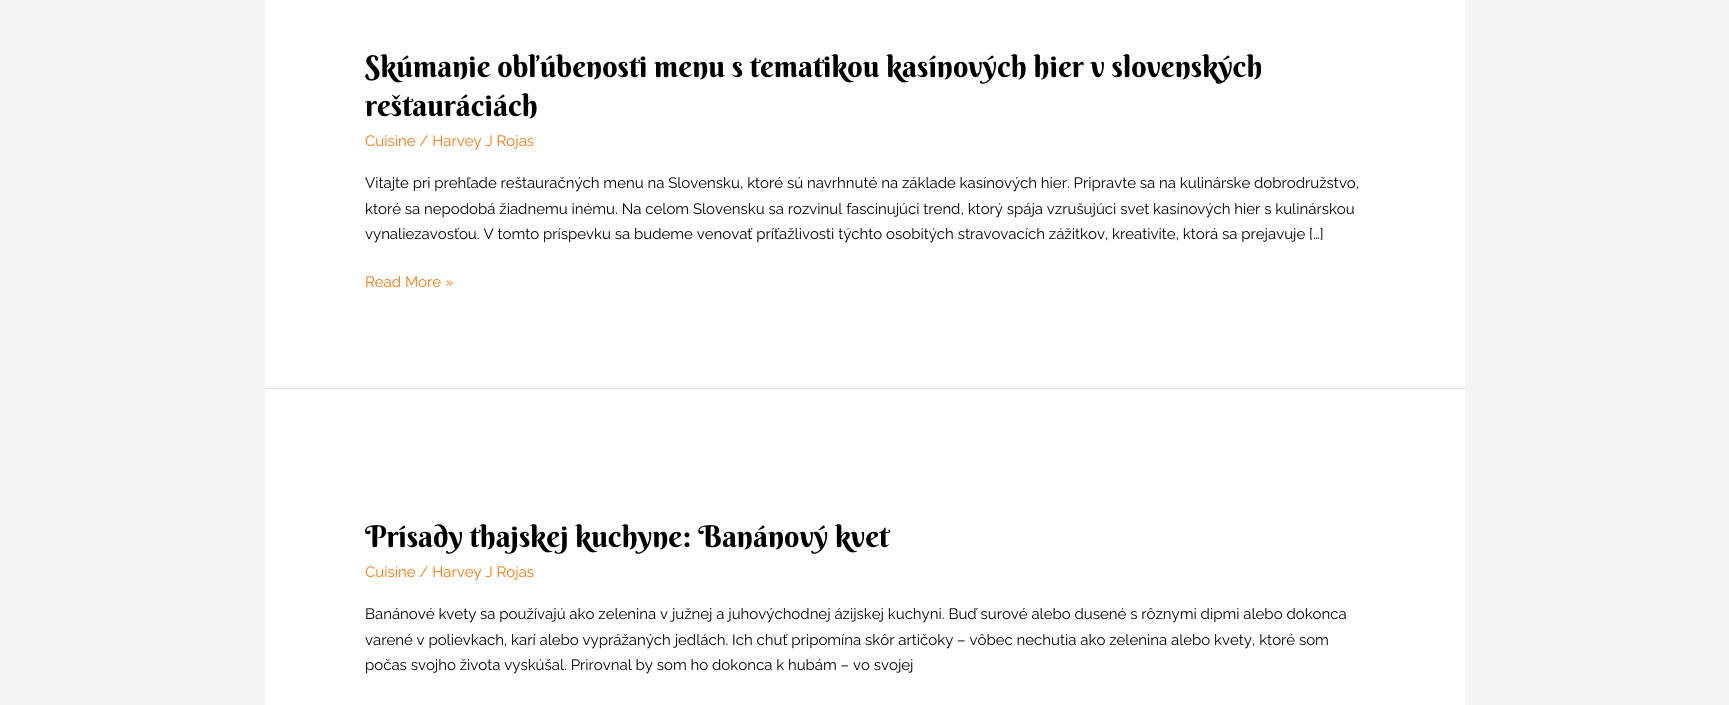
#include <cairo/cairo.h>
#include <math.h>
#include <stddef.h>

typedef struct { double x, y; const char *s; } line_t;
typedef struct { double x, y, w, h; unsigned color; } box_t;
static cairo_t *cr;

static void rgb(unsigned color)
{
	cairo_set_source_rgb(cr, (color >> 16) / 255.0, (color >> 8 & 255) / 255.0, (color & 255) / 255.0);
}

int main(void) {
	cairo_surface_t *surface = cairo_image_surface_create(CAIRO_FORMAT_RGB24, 1729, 705);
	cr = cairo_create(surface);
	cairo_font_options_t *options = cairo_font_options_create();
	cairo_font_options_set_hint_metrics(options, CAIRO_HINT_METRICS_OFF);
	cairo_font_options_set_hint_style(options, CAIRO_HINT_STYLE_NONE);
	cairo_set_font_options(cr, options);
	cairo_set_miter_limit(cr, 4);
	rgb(0xf5f5f5);
	cairo_paint(cr);
	{
		static const box_t items[] = {
			{265, 0, 1200, 388, 0xffffff},
			{265, 388, 1200, 1, 0xdddddd},
			{265, 389, 1200, 316, 0xffffff},
		};
		for (size_t i = 0; i < sizeof items / sizeof *items; i++) {
			rgb(items[i].color);
			cairo_rectangle(cr, items[i].x, items[i].y, items[i].w, items[i].h);
			cairo_fill(cr);
		}
	}
	cairo_select_font_face(cr, "Berkshire Swash", CAIRO_FONT_SLANT_NORMAL, CAIRO_FONT_WEIGHT_NORMAL);
	cairo_set_font_size(cr, 30);
	rgb(0x000000);
	cairo_move_to(cr, 365, 77);
	cairo_show_text(cr, "Skúmanie obľúbenosti menu s tematikou kasínových hier v slovenských");
	cairo_move_to(cr, 365, 116);
	cairo_show_text(cr, "reštauráciách");
	cairo_select_font_face(cr, "Raleway", CAIRO_FONT_SLANT_NORMAL, CAIRO_FONT_WEIGHT_NORMAL);
	cairo_set_font_size(cr, 15);
	rgb(0xff770f);
	cairo_move_to(cr, 365, 146);
	cairo_show_text(cr, "Cuisine / Harvey J Rojas");
	rgb(0x000000);
	{
		static const line_t items[] = {
			{365, 188, "Vitajte pri prehľade reštauračných menu na Slovensku, ktoré sú navrhnuté na základe kasínových hier. Pripravte sa na kulinárske dobrodružstvo,"},
			{365, 214, "ktoré sa nepodobá žiadnemu inému. Na celom Slovensku sa rozvinul fascinujúci trend, ktorý spája vzrušujúci svet kasínových hier s kulinárskou"},
			{365, 239, "vynaliezavosťou. V tomto príspevku sa budeme venovať príťažlivosti týchto osobitých stravovacích zážitkov, kreativite, ktorá sa prejavuje […]"},
		};
		for (size_t i = 0; i < sizeof items / sizeof *items; i++) {
			cairo_move_to(cr, items[i].x, items[i].y);
			cairo_show_text(cr, items[i].s);
		}
	}
	rgb(0xff770f);
	cairo_move_to(cr, 365, 287);
	cairo_show_text(cr, "Read More »");
	cairo_save(cr);
	cairo_rectangle(cr, 365, 469, 999, 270);
	cairo_clip(cr);
	cairo_select_font_face(cr, "Berkshire Swash", CAIRO_FONT_SLANT_NORMAL, CAIRO_FONT_WEIGHT_NORMAL);
	cairo_set_font_size(cr, 30);
	rgb(0x000000);
	cairo_move_to(cr, 365, 547);
	cairo_show_text(cr, "Prísady thajskej kuchyne: Banánový kvet");
	cairo_restore(cr);
	cairo_move_to(cr, 365, 577);
	cairo_show_text(cr, "Cuisine / Harvey J Rojas");
	rgb(0x000000);
	{
		static const line_t items[] = {
			{365, 619, "Banánové kvety sa používajú ako zelenina v južnej a juhovýchodnej ázijskej kuchyni. Buď surové alebo dusené s rôznymi dipmi alebo dokonca"},
			{365, 645, "varené v polievkach, karí alebo vyprážaných jedlách. Ich chuť pripomína skôr artičoky – vôbec nechutia ako zelenina alebo kvety, ktoré som"},
			{365, 670, "počas svojho života vyskúšal. Prirovnal by som ho dokonca k hubám – vo svojej"},
		};
		for (size_t i = 0; i < sizeof items / sizeof *items; i++) {
			cairo_move_to(cr, items[i].x, items[i].y);
			cairo_show_text(cr, items[i].s);
		}
	}
	cairo_surface_write_to_png(surface, "page.png");
	cairo_font_options_destroy(options);
	cairo_destroy(cr);
	cairo_surface_destroy(surface);
	return 0;
}
